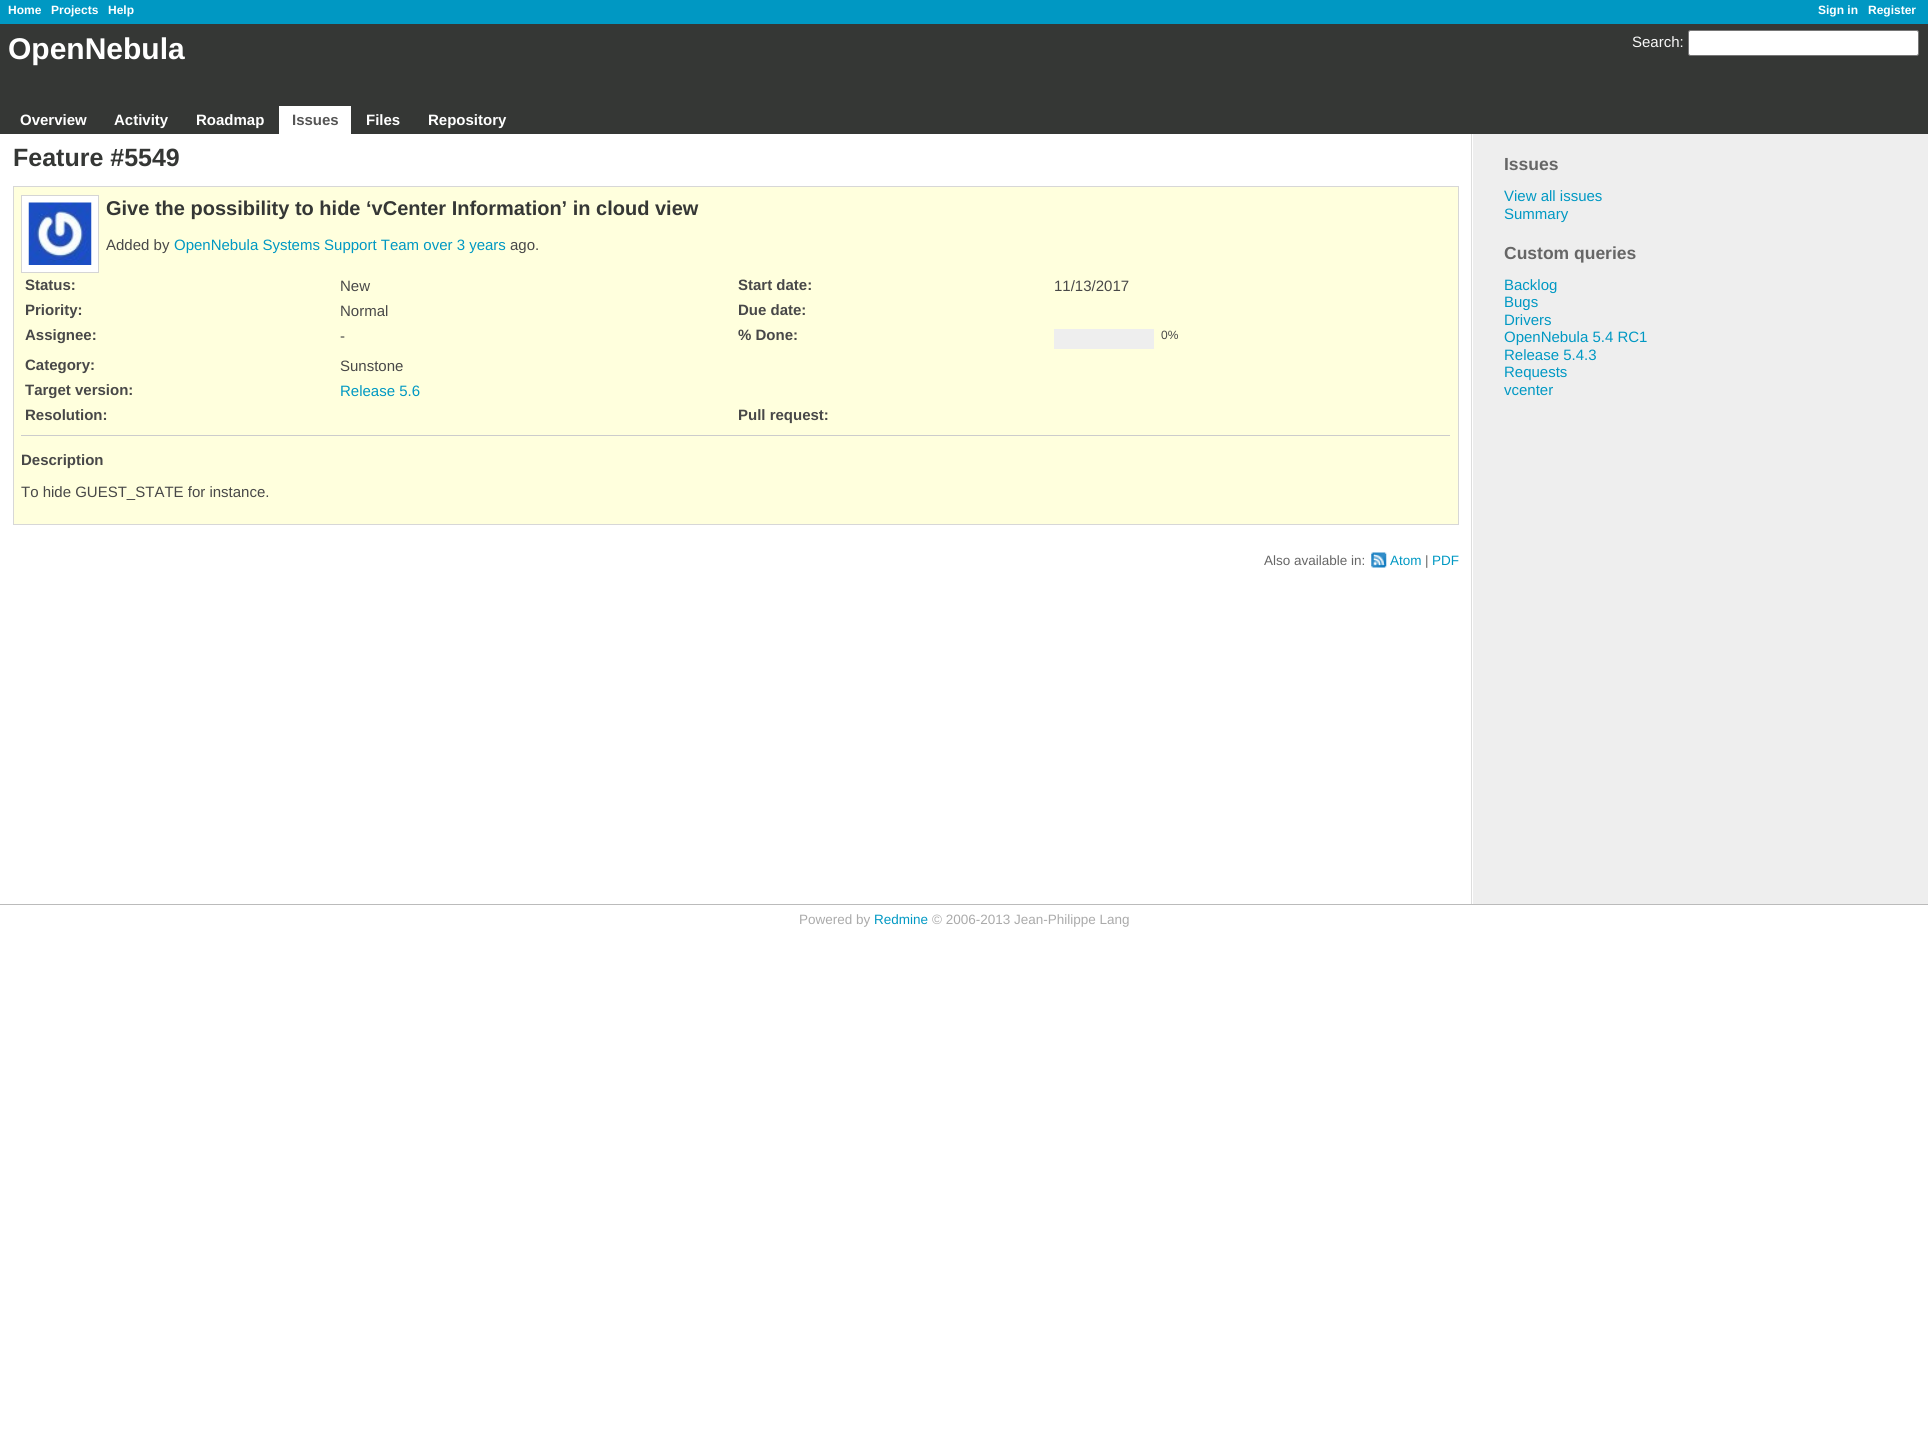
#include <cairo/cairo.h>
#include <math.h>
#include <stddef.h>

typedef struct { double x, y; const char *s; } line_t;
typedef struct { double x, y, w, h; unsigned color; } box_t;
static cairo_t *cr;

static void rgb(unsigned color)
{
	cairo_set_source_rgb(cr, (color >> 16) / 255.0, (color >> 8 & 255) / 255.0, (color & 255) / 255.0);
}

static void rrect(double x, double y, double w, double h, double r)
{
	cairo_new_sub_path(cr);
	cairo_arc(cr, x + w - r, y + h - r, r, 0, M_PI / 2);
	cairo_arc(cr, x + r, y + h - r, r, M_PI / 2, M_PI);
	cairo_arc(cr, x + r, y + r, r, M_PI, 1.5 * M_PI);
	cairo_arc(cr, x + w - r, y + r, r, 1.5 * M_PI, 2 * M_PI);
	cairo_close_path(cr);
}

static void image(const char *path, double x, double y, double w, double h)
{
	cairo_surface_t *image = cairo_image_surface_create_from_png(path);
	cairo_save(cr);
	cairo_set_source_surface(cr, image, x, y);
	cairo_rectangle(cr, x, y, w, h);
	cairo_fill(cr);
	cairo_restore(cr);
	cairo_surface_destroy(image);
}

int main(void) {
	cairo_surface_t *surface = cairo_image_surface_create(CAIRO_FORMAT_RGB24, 1928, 1444);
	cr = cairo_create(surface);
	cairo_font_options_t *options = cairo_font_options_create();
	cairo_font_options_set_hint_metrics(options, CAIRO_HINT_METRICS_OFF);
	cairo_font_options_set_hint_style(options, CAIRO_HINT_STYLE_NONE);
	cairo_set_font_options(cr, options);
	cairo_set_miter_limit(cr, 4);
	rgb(0xffffff);
	cairo_paint(cr);
	rgb(0x0098c3);
	cairo_rectangle(cr, 0, 0, 1928, 24);
	cairo_fill(cr);
	rgb(0x353735);
	cairo_rectangle(cr, 0, 24, 1928, 110);
	cairo_fill(cr);
	rgb(0xffffff);
	rrect(1688.5, 30.5, 230, 25, 2);
	cairo_fill_preserve(cr);
	rgb(0x767676);
	cairo_set_line_width(cr, 1);
	cairo_stroke(cr);
	{
		static const box_t items[] = {
			{279, 106, 72, 28, 0xffffff},
			{1473, 134, 455, 770, 0xeeeeee},
			{1471, 134, 1, 770, 0xdddddd},
		};
		for (size_t i = 0; i < sizeof items / sizeof *items; i++) {
			rgb(items[i].color);
			cairo_rectangle(cr, items[i].x, items[i].y, items[i].w, items[i].h);
			cairo_fill(cr);
		}
	}
	rgb(0xffffdd);
	cairo_rectangle(cr, 13.5, 186.5, 1445, 338);
	cairo_fill_preserve(cr);
	rgb(0xd7d7d7);
	cairo_stroke(cr);
	rgb(0xffffff);
	cairo_rectangle(cr, 21.5, 195.5, 77, 77);
	cairo_fill_preserve(cr);
	rgb(0xd5d5d5);
	cairo_stroke(cr);
	image("img/1.png", 28, 202, 64, 63);
	rgb(0xeeeeee);
	cairo_rectangle(cr, 1054, 329, 100, 20);
	cairo_fill(cr);
	rgb(0xcccccc);
	cairo_rectangle(cr, 21, 435, 1429, 1);
	cairo_fill(cr);
	image("img/2.png", 1371, 552, 16, 16);
	rgb(0xbbbbbb);
	cairo_rectangle(cr, 0, 904, 1928, 1);
	cairo_fill(cr);
	cairo_select_font_face(cr, "Liberation Sans", CAIRO_FONT_SLANT_NORMAL, CAIRO_FONT_WEIGHT_BOLD);
	cairo_set_font_size(cr, 12);
	rgb(0xffffff);
	{
		static const line_t items[] = {
			{8, 14, "Home"},
			{51, 14, "Projects"},
			{108, 14, "Help"},
			{1818, 14, "Sign in"},
			{1868, 14, "Register"},
		};
		for (size_t i = 0; i < sizeof items / sizeof *items; i++) {
			cairo_move_to(cr, items[i].x, items[i].y);
			cairo_show_text(cr, items[i].s);
		}
	}
	cairo_set_font_size(cr, 30);
	cairo_move_to(cr, 8, 59);
	cairo_show_text(cr, "OpenNebula");
	cairo_select_font_face(cr, "Liberation Sans", CAIRO_FONT_SLANT_NORMAL, CAIRO_FONT_WEIGHT_NORMAL);
	cairo_set_font_size(cr, 15);
	rgb(0xf8f8f8);
	cairo_move_to(cr, 1632, 47);
	cairo_show_text(cr, "Search:");
	cairo_select_font_face(cr, "Liberation Sans", CAIRO_FONT_SLANT_NORMAL, CAIRO_FONT_WEIGHT_BOLD);
	rgb(0xffffff);
	{
		static const line_t items[] = {
			{20, 125, "Overview"},
			{114, 125, "Activity"},
			{196, 125, "Roadmap"},
		};
		for (size_t i = 0; i < sizeof items / sizeof *items; i++) {
			cairo_move_to(cr, items[i].x, items[i].y);
			cairo_show_text(cr, items[i].s);
		}
	}
	rgb(0x555555);
	cairo_move_to(cr, 292, 125);
	cairo_show_text(cr, "Issues");
	rgb(0xffffff);
	cairo_move_to(cr, 366, 125);
	cairo_show_text(cr, "Files");
	cairo_move_to(cr, 428, 125);
	cairo_show_text(cr, "Repository");
	cairo_set_font_size(cr, 25);
	rgb(0x353735);
	cairo_move_to(cr, 13, 166);
	cairo_show_text(cr, "Feature #5549");
	cairo_set_font_size(cr, 20);
	cairo_move_to(cr, 106, 215);
	cairo_show_text(cr, "Give the possibility to hide ‘vCenter Information’ in cloud view");
	cairo_select_font_face(cr, "Liberation Sans", CAIRO_FONT_SLANT_NORMAL, CAIRO_FONT_WEIGHT_NORMAL);
	cairo_set_font_size(cr, 15);
	rgb(0x484848);
	cairo_move_to(cr, 106, 250);
	cairo_show_text(cr, "Added by");
	rgb(0x0098c3);
	cairo_move_to(cr, 174, 250);
	cairo_show_text(cr, "OpenNebula Systems Support Team over 3 years");
	rgb(0x484848);
	cairo_move_to(cr, 510, 250);
	cairo_show_text(cr, "ago.");
	cairo_select_font_face(cr, "Liberation Sans", CAIRO_FONT_SLANT_NORMAL, CAIRO_FONT_WEIGHT_BOLD);
	cairo_move_to(cr, 25, 290);
	cairo_show_text(cr, "Status:");
	cairo_select_font_face(cr, "Liberation Sans", CAIRO_FONT_SLANT_NORMAL, CAIRO_FONT_WEIGHT_NORMAL);
	cairo_move_to(cr, 340, 291);
	cairo_show_text(cr, "New");
	cairo_select_font_face(cr, "Liberation Sans", CAIRO_FONT_SLANT_NORMAL, CAIRO_FONT_WEIGHT_BOLD);
	cairo_move_to(cr, 738, 290);
	cairo_show_text(cr, "Start date:");
	cairo_select_font_face(cr, "Liberation Sans", CAIRO_FONT_SLANT_NORMAL, CAIRO_FONT_WEIGHT_NORMAL);
	cairo_move_to(cr, 1054, 291);
	cairo_show_text(cr, "11/13/2017");
	cairo_select_font_face(cr, "Liberation Sans", CAIRO_FONT_SLANT_NORMAL, CAIRO_FONT_WEIGHT_BOLD);
	cairo_move_to(cr, 25, 315);
	cairo_show_text(cr, "Priority:");
	cairo_select_font_face(cr, "Liberation Sans", CAIRO_FONT_SLANT_NORMAL, CAIRO_FONT_WEIGHT_NORMAL);
	cairo_move_to(cr, 340, 316);
	cairo_show_text(cr, "Normal");
	cairo_select_font_face(cr, "Liberation Sans", CAIRO_FONT_SLANT_NORMAL, CAIRO_FONT_WEIGHT_BOLD);
	cairo_move_to(cr, 738, 315);
	cairo_show_text(cr, "Due date:");
	cairo_move_to(cr, 25, 340);
	cairo_show_text(cr, "Assignee:");
	cairo_select_font_face(cr, "Liberation Sans", CAIRO_FONT_SLANT_NORMAL, CAIRO_FONT_WEIGHT_NORMAL);
	cairo_move_to(cr, 340, 341);
	cairo_show_text(cr, "-");
	cairo_select_font_face(cr, "Liberation Sans", CAIRO_FONT_SLANT_NORMAL, CAIRO_FONT_WEIGHT_BOLD);
	cairo_move_to(cr, 738, 340);
	cairo_show_text(cr, "% Done:");
	cairo_select_font_face(cr, "Liberation Sans", CAIRO_FONT_SLANT_NORMAL, CAIRO_FONT_WEIGHT_NORMAL);
	cairo_set_font_size(cr, 12);
	cairo_move_to(cr, 1161, 339);
	cairo_show_text(cr, "0%");
	cairo_select_font_face(cr, "Liberation Sans", CAIRO_FONT_SLANT_NORMAL, CAIRO_FONT_WEIGHT_BOLD);
	cairo_set_font_size(cr, 15);
	cairo_move_to(cr, 25, 370);
	cairo_show_text(cr, "Category:");
	cairo_select_font_face(cr, "Liberation Sans", CAIRO_FONT_SLANT_NORMAL, CAIRO_FONT_WEIGHT_NORMAL);
	cairo_move_to(cr, 340, 371);
	cairo_show_text(cr, "Sunstone");
	cairo_select_font_face(cr, "Liberation Sans", CAIRO_FONT_SLANT_NORMAL, CAIRO_FONT_WEIGHT_BOLD);
	cairo_move_to(cr, 25, 395);
	cairo_show_text(cr, "Target version:");
	cairo_select_font_face(cr, "Liberation Sans", CAIRO_FONT_SLANT_NORMAL, CAIRO_FONT_WEIGHT_NORMAL);
	rgb(0x0098c3);
	cairo_move_to(cr, 340, 396);
	cairo_show_text(cr, "Release 5.6");
	cairo_select_font_face(cr, "Liberation Sans", CAIRO_FONT_SLANT_NORMAL, CAIRO_FONT_WEIGHT_BOLD);
	rgb(0x484848);
	{
		static const line_t items[] = {
			{25, 420, "Resolution:"},
			{738, 420, "Pull request:"},
			{21, 465, "Description"},
		};
		for (size_t i = 0; i < sizeof items / sizeof *items; i++) {
			cairo_move_to(cr, items[i].x, items[i].y);
			cairo_show_text(cr, items[i].s);
		}
	}
	cairo_select_font_face(cr, "Liberation Sans", CAIRO_FONT_SLANT_NORMAL, CAIRO_FONT_WEIGHT_NORMAL);
	cairo_move_to(cr, 21, 497);
	cairo_show_text(cr, "To hide GUEST_STATE for instance.");
	cairo_set_font_size(cr, 13.5);
	rgb(0x666666);
	cairo_move_to(cr, 1264, 565);
	cairo_show_text(cr, "Also available in:");
	rgb(0x0098c3);
	cairo_move_to(cr, 1390, 565);
	cairo_show_text(cr, "Atom");
	rgb(0x666666);
	cairo_move_to(cr, 1425, 565);
	cairo_show_text(cr, "|");
	rgb(0x0098c3);
	cairo_move_to(cr, 1432, 565);
	cairo_show_text(cr, "PDF");
	cairo_select_font_face(cr, "Liberation Sans", CAIRO_FONT_SLANT_NORMAL, CAIRO_FONT_WEIGHT_BOLD);
	cairo_set_font_size(cr, 17.5);
	rgb(0x666666);
	cairo_move_to(cr, 1504, 170);
	cairo_show_text(cr, "Issues");
	cairo_select_font_face(cr, "Liberation Sans", CAIRO_FONT_SLANT_NORMAL, CAIRO_FONT_WEIGHT_NORMAL);
	cairo_set_font_size(cr, 15);
	rgb(0x0098c3);
	cairo_move_to(cr, 1504, 201);
	cairo_show_text(cr, "View all issues");
	cairo_move_to(cr, 1504, 219);
	cairo_show_text(cr, "Summary");
	cairo_select_font_face(cr, "Liberation Sans", CAIRO_FONT_SLANT_NORMAL, CAIRO_FONT_WEIGHT_BOLD);
	cairo_set_font_size(cr, 17.5);
	rgb(0x666666);
	cairo_move_to(cr, 1504, 259);
	cairo_show_text(cr, "Custom queries");
	cairo_select_font_face(cr, "Liberation Sans", CAIRO_FONT_SLANT_NORMAL, CAIRO_FONT_WEIGHT_NORMAL);
	cairo_set_font_size(cr, 15);
	rgb(0x0098c3);
	{
		static const line_t items[] = {
			{1504, 290, "Backlog"},
			{1504, 307, "Bugs"},
			{1504, 325, "Drivers"},
			{1504, 342, "OpenNebula 5.4 RC1"},
			{1504, 360, "Release 5.4.3"},
			{1504, 377, "Requests"},
			{1504, 395, "vcenter"},
		};
		for (size_t i = 0; i < sizeof items / sizeof *items; i++) {
			cairo_move_to(cr, items[i].x, items[i].y);
			cairo_show_text(cr, items[i].s);
		}
	}
	cairo_set_font_size(cr, 13.5);
	rgb(0xaaaaaa);
	cairo_move_to(cr, 799, 924);
	cairo_show_text(cr, "Powered by");
	rgb(0x0098c3);
	cairo_move_to(cr, 874, 924);
	cairo_show_text(cr, "Redmine");
	rgb(0xaaaaaa);
	cairo_move_to(cr, 932, 924);
	cairo_show_text(cr, "© 2006-2013 Jean-Philippe Lang");
	cairo_surface_write_to_png(surface, "page.png");
	cairo_font_options_destroy(options);
	cairo_destroy(cr);
	cairo_surface_destroy(surface);
	return 0;
}
